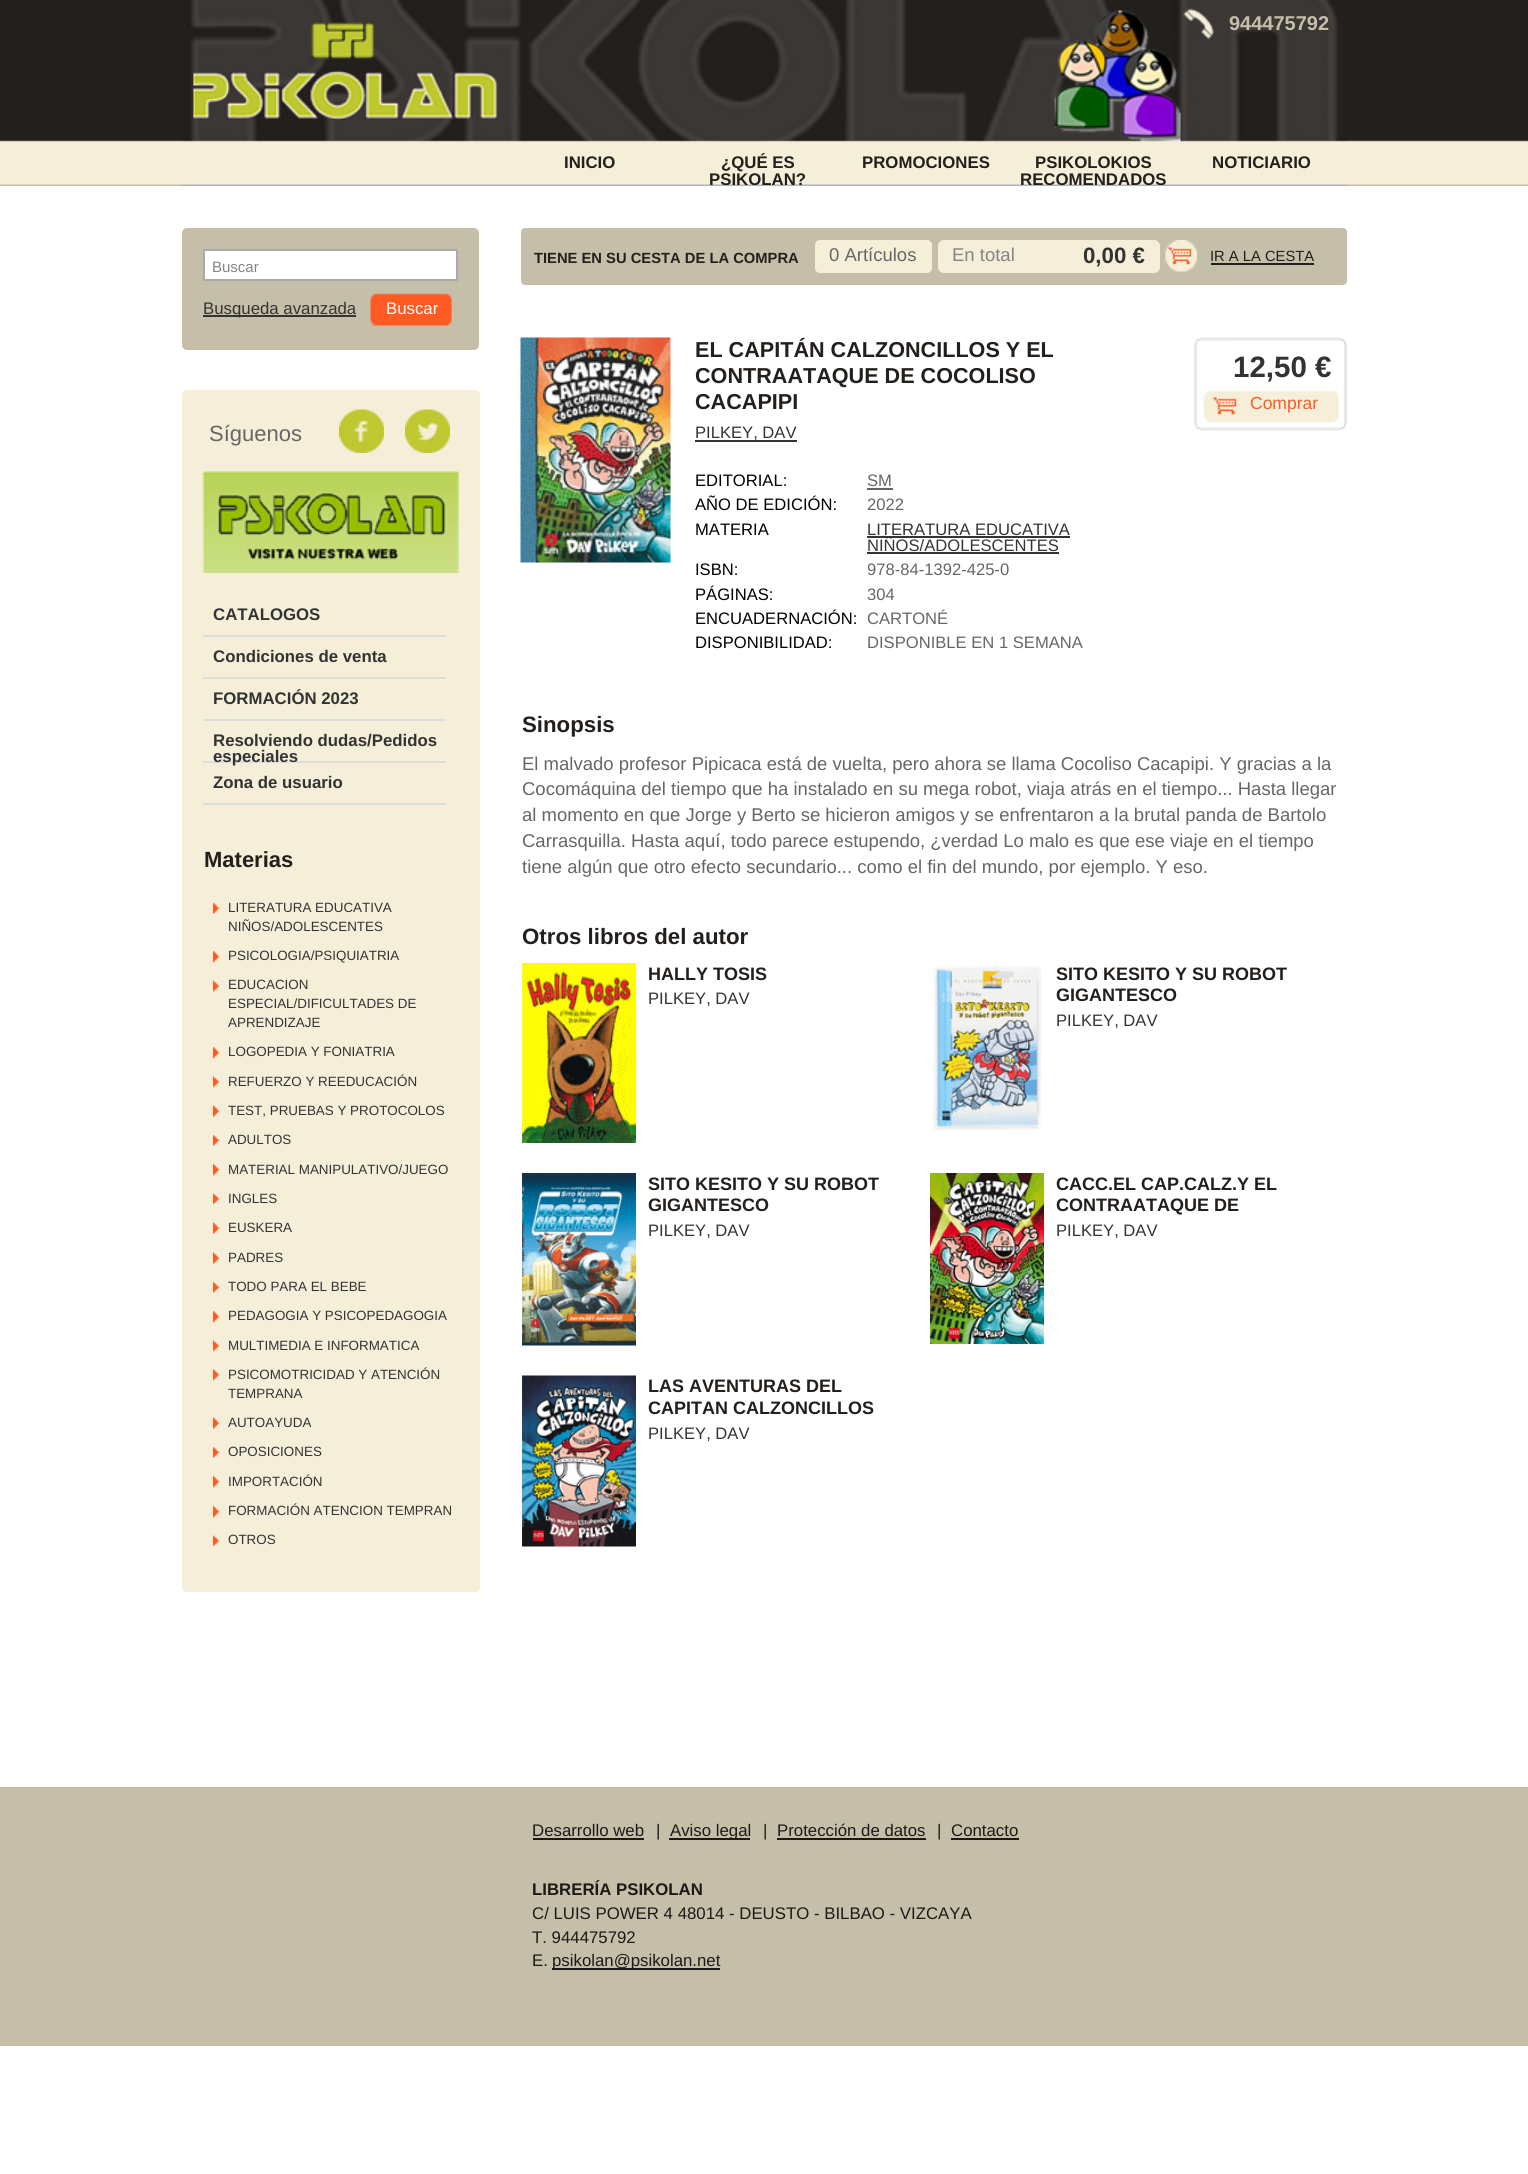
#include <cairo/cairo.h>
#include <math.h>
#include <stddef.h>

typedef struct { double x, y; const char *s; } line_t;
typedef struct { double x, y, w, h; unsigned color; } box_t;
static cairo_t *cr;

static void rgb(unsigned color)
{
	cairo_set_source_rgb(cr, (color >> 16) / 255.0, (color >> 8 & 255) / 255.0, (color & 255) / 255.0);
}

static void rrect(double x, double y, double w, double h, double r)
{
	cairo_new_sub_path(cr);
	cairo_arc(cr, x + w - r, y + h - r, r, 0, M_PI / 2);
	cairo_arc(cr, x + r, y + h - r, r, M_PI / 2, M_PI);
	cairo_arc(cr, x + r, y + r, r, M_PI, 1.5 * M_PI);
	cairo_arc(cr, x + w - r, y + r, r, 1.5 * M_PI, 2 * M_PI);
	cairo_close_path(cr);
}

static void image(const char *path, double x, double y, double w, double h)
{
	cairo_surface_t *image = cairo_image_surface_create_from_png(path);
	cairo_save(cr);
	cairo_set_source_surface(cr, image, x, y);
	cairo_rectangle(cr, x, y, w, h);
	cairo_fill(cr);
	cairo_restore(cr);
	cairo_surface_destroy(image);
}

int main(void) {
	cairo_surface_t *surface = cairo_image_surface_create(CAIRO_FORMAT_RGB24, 1528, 2174);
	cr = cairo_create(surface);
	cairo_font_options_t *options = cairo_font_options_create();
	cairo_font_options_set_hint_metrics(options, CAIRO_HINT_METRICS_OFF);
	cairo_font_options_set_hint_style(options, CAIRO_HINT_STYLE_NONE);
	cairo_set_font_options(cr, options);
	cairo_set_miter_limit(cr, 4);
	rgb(0xffffff);
	cairo_paint(cr);
	image("img/1.png", 0, 0, 1528, 186);
	image("img/2.png", 181, 0, 1166, 186);
	image("img/3.png", 193, 22, 305, 99);
	image("img/4.png", 1183, 8, 31, 32);
	rgb(0xc5bea9);
	rrect(183, 229, 295, 120, 4);
	cairo_fill_preserve(cr);
	cairo_stroke(cr);
	rgb(0xffffff);
	cairo_rectangle(cr, 204, 250, 253, 30);
	cairo_fill_preserve(cr);
	rgb(0xaaaaaa);
	cairo_stroke(cr);
	image("img/5.png", 370, 293, 82, 33);
	rgb(0x333333);
	cairo_rectangle(cr, 203, 315, 153, 2);
	cairo_fill(cr);
	rgb(0xf5eed8);
	rrect(183, 391, 296, 1200, 4);
	cairo_fill_preserve(cr);
	cairo_stroke(cr);
	image("img/6.png", 339, 409, 45, 44);
	image("img/7.png", 405, 409, 45, 44);
	image("img/8.png", 202, 471, 257, 102);
	{
		static const box_t items[] = {
			{203, 635, 243, 2, 0xdddddd},
			{203, 677, 243, 2, 0xdddddd},
			{203, 719, 243, 2, 0xdddddd},
			{203, 761, 243, 2, 0xdddddd},
			{203, 803, 243, 2, 0xdddddd},
		};
		for (size_t i = 0; i < sizeof items / sizeof *items; i++) {
			rgb(items[i].color);
			cairo_rectangle(cr, items[i].x, items[i].y, items[i].w, items[i].h);
			cairo_fill(cr);
		}
	}
	image("img/9.png", 213, 902, 7, 12);
	image("img/10.png", 213, 950, 7, 13);
	image("img/11.png", 213, 980, 7, 12);
	image("img/10.png", 213, 1046, 7, 13);
	image("img/12.png", 213, 1076, 7, 12);
	image("img/13.png", 213, 1105, 7, 12);
	image("img/14.png", 213, 1135, 7, 11);
	image("img/10.png", 213, 1163, 7, 13);
	image("img/12.png", 213, 1193, 7, 12);
	image("img/13.png", 213, 1222, 7, 12);
	image("img/13.png", 213, 1252, 7, 12);
	image("img/14.png", 213, 1282, 7, 11);
	image("img/10.png", 213, 1310, 7, 13);
	image("img/12.png", 213, 1340, 7, 12);
	image("img/15.png", 213, 1369, 7, 12);
	image("img/13.png", 213, 1417, 7, 12);
	image("img/14.png", 213, 1447, 7, 11);
	image("img/10.png", 213, 1475, 7, 13);
	image("img/10.png", 213, 1505, 7, 13);
	image("img/12.png", 213, 1535, 7, 12);
	rgb(0xc5bea9);
	rrect(522, 229, 824, 55, 3);
	cairo_fill_preserve(cr);
	cairo_stroke(cr);
	rgb(0xf5eed8);
	rrect(815, 240, 117, 33, 5);
	cairo_fill(cr);
	rrect(938, 240, 222, 33, 6);
	cairo_fill(cr);
	image("img/16.png", 1165, 240, 32, 32);
	rgb(0x231f1c);
	cairo_rectangle(cr, 1211, 263, 103, 2);
	cairo_fill(cr);
	rgb(0xf8f8f8);
	cairo_rectangle(cr, 521, 338, 150, 225);
	cairo_fill(cr);
	image("img/17.png", 520, 337, 151, 226);
	{
		static const box_t items[] = {
			{695, 440, 102, 2, 0x333333},
			{867, 488, 26, 2, 0x666666},
			{867, 536, 203, 2, 0x333333},
			{867, 552, 192, 2, 0x333333},
		};
		for (size_t i = 0; i < sizeof items / sizeof *items; i++) {
			rgb(items[i].color);
			cairo_rectangle(cr, items[i].x, items[i].y, items[i].w, items[i].h);
			cairo_fill(cr);
		}
	}
	image("img/18.png", 1194, 337, 153, 94);
	image("img/19.png", 522, 963, 114, 180);
	image("img/20.png", 932, 965, 110, 166);
	image("img/21.png", 522, 1173, 114, 173);
	image("img/22.png", 930, 1173, 114, 171);
	image("img/23.png", 522, 1375, 114, 172);
	{
		static const box_t items[] = {
			{0, 1787, 1528, 259, 0xc5bea9},
			{533, 1838, 111, 2, 0x1b1a17},
			{669, 1838, 81, 2, 0x1b1a17},
			{777, 1838, 149, 2, 0x1b1a17},
			{951, 1838, 68, 2, 0x1b1a17},
			{552, 1968, 168, 2, 0x1b1a17},
		};
		for (size_t i = 0; i < sizeof items / sizeof *items; i++) {
			rgb(items[i].color);
			cairo_rectangle(cr, items[i].x, items[i].y, items[i].w, items[i].h);
			cairo_fill(cr);
		}
	}
	cairo_select_font_face(cr, "Liberation Sans", CAIRO_FONT_SLANT_NORMAL, CAIRO_FONT_WEIGHT_BOLD);
	cairo_set_font_size(cr, 20);
	rgb(0xc5bea9);
	cairo_move_to(cr, 1229, 30);
	cairo_show_text(cr, "944475792");
	cairo_set_font_size(cr, 16.8);
	rgb(0x231f1c);
	{
		static const line_t items[] = {
			{564, 168, "INICIO"},
			{721, 168, "¿QUÉ ES"},
			{709, 185, "PSIKOLAN?"},
			{862, 168, "PROMOCIONES"},
			{1035, 168, "PSIKOLOKIOS"},
			{1020, 185, "RECOMENDADOS"},
			{1212, 168, "NOTICIARIO"},
		};
		for (size_t i = 0; i < sizeof items / sizeof *items; i++) {
			cairo_move_to(cr, items[i].x, items[i].y);
			cairo_show_text(cr, items[i].s);
		}
	}
	cairo_select_font_face(cr, "Liberation Sans", CAIRO_FONT_SLANT_NORMAL, CAIRO_FONT_WEIGHT_NORMAL);
	cairo_set_font_size(cr, 15);
	rgb(0x848484);
	cairo_move_to(cr, 212, 272);
	cairo_show_text(cr, "Buscar");
	cairo_set_font_size(cr, 16.8);
	rgb(0xffffff);
	cairo_move_to(cr, 386, 314);
	cairo_show_text(cr, "Buscar");
	rgb(0x333333);
	cairo_move_to(cr, 203, 314);
	cairo_show_text(cr, "Busqueda avanzada");
	cairo_set_font_size(cr, 22);
	rgb(0x666666);
	cairo_move_to(cr, 209, 441);
	cairo_show_text(cr, "Síguenos");
	cairo_select_font_face(cr, "Liberation Sans", CAIRO_FONT_SLANT_NORMAL, CAIRO_FONT_WEIGHT_BOLD);
	cairo_set_font_size(cr, 16.8);
	rgb(0x333333);
	{
		static const line_t items[] = {
			{213, 620, "CATALOGOS"},
			{213, 662, "Condiciones de venta"},
			{213, 704, "FORMACIÓN 2023"},
			{213, 746, "Resolviendo dudas/Pedidos"},
			{213, 762, "especiales"},
			{213, 788, "Zona de usuario"},
		};
		for (size_t i = 0; i < sizeof items / sizeof *items; i++) {
			cairo_move_to(cr, items[i].x, items[i].y);
			cairo_show_text(cr, items[i].s);
		}
	}
	cairo_set_font_size(cr, 22);
	rgb(0x231f1c);
	cairo_move_to(cr, 204, 867);
	cairo_show_text(cr, "Materias");
	cairo_select_font_face(cr, "Liberation Sans", CAIRO_FONT_SLANT_NORMAL, CAIRO_FONT_WEIGHT_NORMAL);
	cairo_set_font_size(cr, 13.4);
	rgb(0x333333);
	{
		static const line_t items[] = {
			{228, 912, "LITERATURA EDUCATIVA"},
			{228, 931, "NIÑOS/ADOLESCENTES"},
			{228, 960, "PSICOLOGIA/PSIQUIATRIA"},
			{228, 989, "EDUCACION"},
			{228, 1008, "ESPECIAL/DIFICULTADES DE"},
			{228, 1027, "APRENDIZAJE"},
			{228, 1056, "LOGOPEDIA Y FONIATRIA"},
			{228, 1086, "REFUERZO Y REEDUCACIÓN"},
			{228, 1115, "TEST, PRUEBAS Y PROTOCOLOS"},
			{228, 1144, "ADULTOS"},
			{228, 1174, "MATERIAL MANIPULATIVO/JUEGO"},
			{228, 1203, "INGLES"},
			{228, 1232, "EUSKERA"},
			{228, 1262, "PADRES"},
			{228, 1291, "TODO PARA EL BEBE"},
			{228, 1320, "PEDAGOGIA Y PSICOPEDAGOGIA"},
			{228, 1350, "MULTIMEDIA E INFORMATICA"},
			{228, 1379, "PSICOMOTRICIDAD Y ATENCIÓN"},
			{228, 1398, "TEMPRANA"},
			{228, 1427, "AUTOAYUDA"},
			{228, 1456, "OPOSICIONES"},
			{228, 1486, "IMPORTACIÓN"},
			{228, 1515, "FORMACIÓN ATENCION TEMPRAN"},
			{228, 1544, "OTROS"},
		};
		for (size_t i = 0; i < sizeof items / sizeof *items; i++) {
			cairo_move_to(cr, items[i].x, items[i].y);
			cairo_show_text(cr, items[i].s);
		}
	}
	cairo_select_font_face(cr, "Liberation Sans", CAIRO_FONT_SLANT_NORMAL, CAIRO_FONT_WEIGHT_BOLD);
	cairo_set_font_size(cr, 14.75);
	rgb(0x231f1c);
	cairo_move_to(cr, 534, 263);
	cairo_show_text(cr, "TIENE EN SU CESTA DE LA COMPRA");
	cairo_select_font_face(cr, "Liberation Sans", CAIRO_FONT_SLANT_NORMAL, CAIRO_FONT_WEIGHT_NORMAL);
	cairo_set_font_size(cr, 18.5);
	rgb(0x666666);
	cairo_move_to(cr, 829, 261);
	cairo_show_text(cr, "0 Artículos");
	rgb(0x848484);
	cairo_move_to(cr, 952, 261);
	cairo_show_text(cr, "En total");
	cairo_select_font_face(cr, "Liberation Sans", CAIRO_FONT_SLANT_NORMAL, CAIRO_FONT_WEIGHT_BOLD);
	cairo_set_font_size(cr, 22.25);
	rgb(0x333333);
	cairo_move_to(cr, 1083, 263);
	cairo_show_text(cr, "0,00 €");
	cairo_select_font_face(cr, "Liberation Sans", CAIRO_FONT_SLANT_NORMAL, CAIRO_FONT_WEIGHT_NORMAL);
	cairo_set_font_size(cr, 14.75);
	rgb(0x231f1c);
	cairo_move_to(cr, 1210, 261);
	cairo_show_text(cr, "IR A LA CESTA");
	cairo_select_font_face(cr, "Liberation Sans", CAIRO_FONT_SLANT_NORMAL, CAIRO_FONT_WEIGHT_BOLD);
	cairo_set_font_size(cr, 21.6);
	{
		static const line_t items[] = {
			{695, 357, "EL CAPITÁN CALZONCILLOS Y EL"},
			{695, 383, "CONTRAATAQUE DE COCOLISO"},
			{695, 409, "CACAPIPI"},
		};
		for (size_t i = 0; i < sizeof items / sizeof *items; i++) {
			cairo_move_to(cr, items[i].x, items[i].y);
			cairo_show_text(cr, items[i].s);
		}
	}
	cairo_select_font_face(cr, "Liberation Sans", CAIRO_FONT_SLANT_NORMAL, CAIRO_FONT_WEIGHT_NORMAL);
	cairo_set_font_size(cr, 16.6);
	rgb(0x333333);
	cairo_move_to(cr, 695, 438);
	cairo_show_text(cr, "PILKEY, DAV");
	rgb(0x000000);
	cairo_move_to(cr, 695, 486);
	cairo_show_text(cr, "EDITORIAL:");
	rgb(0x666666);
	cairo_move_to(cr, 867, 486);
	cairo_show_text(cr, "SM");
	rgb(0x000000);
	cairo_move_to(cr, 695, 510);
	cairo_show_text(cr, "AÑO DE EDICIÓN:");
	rgb(0x666666);
	cairo_move_to(cr, 867, 510);
	cairo_show_text(cr, "2022");
	rgb(0x000000);
	cairo_move_to(cr, 695, 535);
	cairo_show_text(cr, "MATERIA");
	rgb(0x333333);
	cairo_move_to(cr, 867, 535);
	cairo_show_text(cr, "LITERATURA EDUCATIVA");
	cairo_move_to(cr, 867, 551);
	cairo_show_text(cr, "NIÑOS/ADOLESCENTES");
	rgb(0x000000);
	cairo_move_to(cr, 695, 575);
	cairo_show_text(cr, "ISBN:");
	rgb(0x666666);
	cairo_move_to(cr, 867, 575);
	cairo_show_text(cr, "978-84-1392-425-0");
	rgb(0x000000);
	cairo_move_to(cr, 695, 600);
	cairo_show_text(cr, "PÁGINAS:");
	rgb(0x666666);
	cairo_move_to(cr, 867, 600);
	cairo_show_text(cr, "304");
	rgb(0x000000);
	cairo_move_to(cr, 695, 624);
	cairo_show_text(cr, "ENCUADERNACIÓN:");
	rgb(0x666666);
	cairo_move_to(cr, 867, 624);
	cairo_show_text(cr, "CARTONÉ");
	rgb(0x000000);
	cairo_move_to(cr, 695, 648);
	cairo_show_text(cr, "DISPONIBILIDAD:");
	rgb(0x666666);
	cairo_move_to(cr, 867, 648);
	cairo_show_text(cr, "DISPONIBLE EN 1 SEMANA");
	cairo_select_font_face(cr, "Liberation Sans", CAIRO_FONT_SLANT_NORMAL, CAIRO_FONT_WEIGHT_BOLD);
	cairo_set_font_size(cr, 29.5);
	rgb(0x333333);
	cairo_move_to(cr, 1233, 377);
	cairo_show_text(cr, "12,50 €");
	cairo_select_font_face(cr, "Liberation Sans", CAIRO_FONT_SLANT_NORMAL, CAIRO_FONT_WEIGHT_NORMAL);
	cairo_set_font_size(cr, 17.5);
	rgb(0xff5a22);
	cairo_move_to(cr, 1250, 409);
	cairo_show_text(cr, "Comprar");
	cairo_select_font_face(cr, "Liberation Sans", CAIRO_FONT_SLANT_NORMAL, CAIRO_FONT_WEIGHT_BOLD);
	cairo_set_font_size(cr, 22.25);
	rgb(0x231f1c);
	cairo_move_to(cr, 522, 732);
	cairo_show_text(cr, "Sinopsis");
	cairo_select_font_face(cr, "Liberation Sans", CAIRO_FONT_SLANT_NORMAL, CAIRO_FONT_WEIGHT_NORMAL);
	cairo_set_font_size(cr, 18.5);
	rgb(0x666666);
	{
		static const line_t items[] = {
			{522, 770, "El malvado profesor Pipicaca está de vuelta, pero ahora se llama Cocoliso Cacapipi. Y gracias a la"},
			{522, 795, "Cocomáquina del tiempo que ha instalado en su mega robot, viaja atrás en el tiempo... Hasta llegar"},
			{522, 821, "al momento en que Jorge y Berto se hicieron amigos y se enfrentaron a la brutal panda de Bartolo"},
			{522, 847, "Carrasquilla. Hasta aquí, todo parece estupendo, ¿verdad Lo malo es que ese viaje en el tiempo"},
			{522, 873, "tiene algún que otro efecto secundario... como el fin del mundo, por ejemplo. Y eso."},
		};
		for (size_t i = 0; i < sizeof items / sizeof *items; i++) {
			cairo_move_to(cr, items[i].x, items[i].y);
			cairo_show_text(cr, items[i].s);
		}
	}
	cairo_select_font_face(cr, "Liberation Sans", CAIRO_FONT_SLANT_NORMAL, CAIRO_FONT_WEIGHT_BOLD);
	cairo_set_font_size(cr, 22.25);
	rgb(0x231f1c);
	cairo_move_to(cr, 522, 944);
	cairo_show_text(cr, "Otros libros del autor");
	cairo_set_font_size(cr, 18);
	cairo_move_to(cr, 648, 980);
	cairo_show_text(cr, "HALLY TOSIS");
	cairo_select_font_face(cr, "Liberation Sans", CAIRO_FONT_SLANT_NORMAL, CAIRO_FONT_WEIGHT_NORMAL);
	cairo_set_font_size(cr, 16.6);
	rgb(0x333333);
	cairo_move_to(cr, 648, 1004);
	cairo_show_text(cr, "PILKEY, DAV");
	cairo_select_font_face(cr, "Liberation Sans", CAIRO_FONT_SLANT_NORMAL, CAIRO_FONT_WEIGHT_BOLD);
	cairo_set_font_size(cr, 18);
	rgb(0x231f1c);
	cairo_move_to(cr, 1056, 980);
	cairo_show_text(cr, "SITO KESITO Y SU ROBOT");
	cairo_move_to(cr, 1056, 1001);
	cairo_show_text(cr, "GIGANTESCO");
	cairo_select_font_face(cr, "Liberation Sans", CAIRO_FONT_SLANT_NORMAL, CAIRO_FONT_WEIGHT_NORMAL);
	cairo_set_font_size(cr, 16.6);
	rgb(0x333333);
	cairo_move_to(cr, 1056, 1026);
	cairo_show_text(cr, "PILKEY, DAV");
	cairo_select_font_face(cr, "Liberation Sans", CAIRO_FONT_SLANT_NORMAL, CAIRO_FONT_WEIGHT_BOLD);
	cairo_set_font_size(cr, 18);
	rgb(0x231f1c);
	cairo_move_to(cr, 648, 1190);
	cairo_show_text(cr, "SITO KESITO Y SU ROBOT");
	cairo_move_to(cr, 648, 1211);
	cairo_show_text(cr, "GIGANTESCO");
	cairo_select_font_face(cr, "Liberation Sans", CAIRO_FONT_SLANT_NORMAL, CAIRO_FONT_WEIGHT_NORMAL);
	cairo_set_font_size(cr, 16.6);
	rgb(0x333333);
	cairo_move_to(cr, 648, 1236);
	cairo_show_text(cr, "PILKEY, DAV");
	cairo_select_font_face(cr, "Liberation Sans", CAIRO_FONT_SLANT_NORMAL, CAIRO_FONT_WEIGHT_BOLD);
	cairo_set_font_size(cr, 18);
	rgb(0x231f1c);
	cairo_move_to(cr, 1056, 1190);
	cairo_show_text(cr, "CACC.EL CAP.CALZ.Y EL");
	cairo_move_to(cr, 1056, 1211);
	cairo_show_text(cr, "CONTRAATAQUE DE");
	cairo_select_font_face(cr, "Liberation Sans", CAIRO_FONT_SLANT_NORMAL, CAIRO_FONT_WEIGHT_NORMAL);
	cairo_set_font_size(cr, 16.6);
	rgb(0x333333);
	cairo_move_to(cr, 1056, 1236);
	cairo_show_text(cr, "PILKEY, DAV");
	cairo_select_font_face(cr, "Liberation Sans", CAIRO_FONT_SLANT_NORMAL, CAIRO_FONT_WEIGHT_BOLD);
	cairo_set_font_size(cr, 18);
	rgb(0x231f1c);
	cairo_move_to(cr, 648, 1392);
	cairo_show_text(cr, "LAS AVENTURAS DEL");
	cairo_move_to(cr, 648, 1414);
	cairo_show_text(cr, "CAPITAN CALZONCILLOS");
	cairo_select_font_face(cr, "Liberation Sans", CAIRO_FONT_SLANT_NORMAL, CAIRO_FONT_WEIGHT_NORMAL);
	cairo_set_font_size(cr, 16.6);
	rgb(0x333333);
	cairo_move_to(cr, 648, 1439);
	cairo_show_text(cr, "PILKEY, DAV");
	cairo_set_font_size(cr, 16.8);
	rgb(0x1b1a17);
	{
		static const line_t items[] = {
			{532, 1836, "Desarrollo web"},
			{656, 1836, "|"},
			{670, 1836, "Aviso legal"},
			{763, 1836, "|"},
			{777, 1836, "Protección de datos"},
			{937, 1836, "|"},
			{951, 1836, "Contacto"},
		};
		for (size_t i = 0; i < sizeof items / sizeof *items; i++) {
			cairo_move_to(cr, items[i].x, items[i].y);
			cairo_show_text(cr, items[i].s);
		}
	}
	cairo_select_font_face(cr, "Liberation Sans", CAIRO_FONT_SLANT_NORMAL, CAIRO_FONT_WEIGHT_BOLD);
	cairo_move_to(cr, 532, 1895);
	cairo_show_text(cr, "LIBRERÍA PSIKOLAN");
	cairo_select_font_face(cr, "Liberation Sans", CAIRO_FONT_SLANT_NORMAL, CAIRO_FONT_WEIGHT_NORMAL);
	{
		static const line_t items[] = {
			{532, 1919, "C/ LUIS POWER 4 48014 - DEUSTO - BILBAO - VIZCAYA"},
			{532, 1943, "T. 944475792"},
			{532, 1966, "E."},
			{552, 1966, "psikolan@psikolan.net"},
		};
		for (size_t i = 0; i < sizeof items / sizeof *items; i++) {
			cairo_move_to(cr, items[i].x, items[i].y);
			cairo_show_text(cr, items[i].s);
		}
	}
	cairo_surface_write_to_png(surface, "page.png");
	cairo_font_options_destroy(options);
	cairo_destroy(cr);
	cairo_surface_destroy(surface);
	return 0;
}
